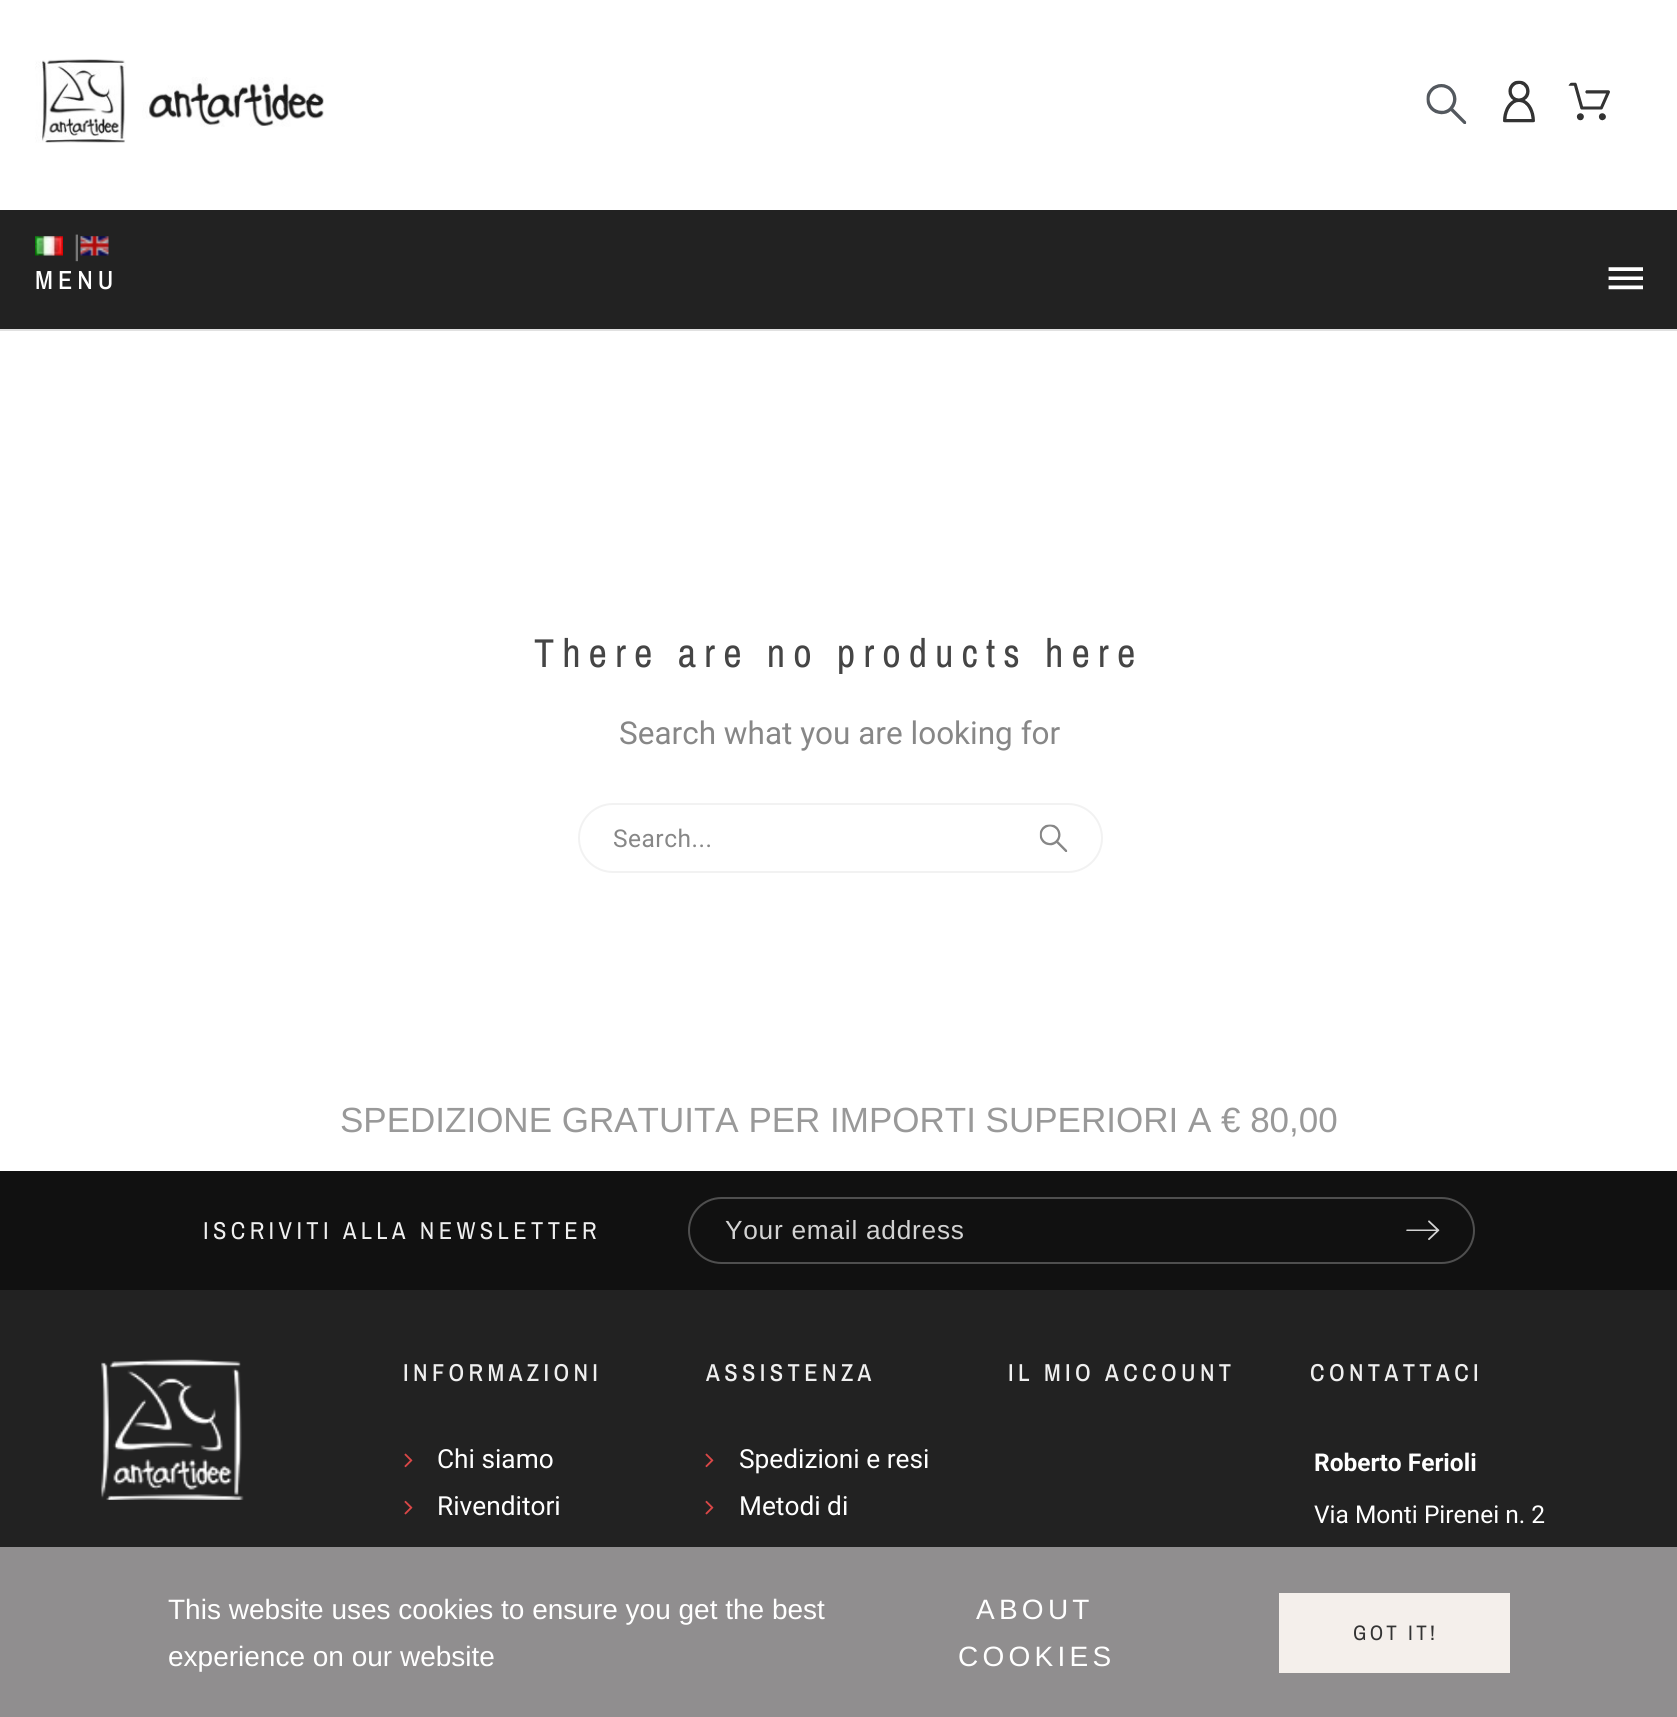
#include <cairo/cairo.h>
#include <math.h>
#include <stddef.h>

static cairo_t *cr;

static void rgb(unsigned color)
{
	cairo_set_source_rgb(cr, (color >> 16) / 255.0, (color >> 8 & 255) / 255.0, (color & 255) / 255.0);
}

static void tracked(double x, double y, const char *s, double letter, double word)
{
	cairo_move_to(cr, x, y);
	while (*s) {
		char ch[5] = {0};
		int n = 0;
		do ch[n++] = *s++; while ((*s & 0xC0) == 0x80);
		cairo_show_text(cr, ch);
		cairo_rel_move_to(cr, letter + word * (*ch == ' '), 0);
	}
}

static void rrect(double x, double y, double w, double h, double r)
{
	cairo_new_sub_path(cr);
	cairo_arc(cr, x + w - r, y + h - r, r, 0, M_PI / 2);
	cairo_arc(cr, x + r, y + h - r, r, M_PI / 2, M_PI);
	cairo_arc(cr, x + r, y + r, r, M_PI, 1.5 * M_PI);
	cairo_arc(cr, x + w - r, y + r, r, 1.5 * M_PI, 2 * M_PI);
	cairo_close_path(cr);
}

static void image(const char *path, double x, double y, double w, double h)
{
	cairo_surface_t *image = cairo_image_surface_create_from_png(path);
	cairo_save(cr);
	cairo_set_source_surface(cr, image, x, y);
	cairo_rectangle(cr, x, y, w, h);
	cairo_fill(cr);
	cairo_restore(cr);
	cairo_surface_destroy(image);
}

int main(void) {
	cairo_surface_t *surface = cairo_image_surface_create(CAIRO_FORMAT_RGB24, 1677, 1717);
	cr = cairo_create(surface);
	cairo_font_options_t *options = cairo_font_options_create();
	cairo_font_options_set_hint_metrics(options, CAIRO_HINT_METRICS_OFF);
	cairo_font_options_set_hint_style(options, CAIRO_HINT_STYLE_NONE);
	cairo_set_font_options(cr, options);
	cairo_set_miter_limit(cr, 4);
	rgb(0xffffff);
	cairo_paint(cr);
	rgb(0xe1e1e1);
	cairo_rectangle(cr, 0, 329, 1677, 2);
	cairo_fill(cr);
	image("img/1.png", 35, 59, 289, 84);
	image("img/2.png", 1426, 84, 41, 40);
	image("img/3.png", 1503, 80, 32, 43);
	image("img/4.png", 1568, 82, 42, 39);
	rgb(0x222222);
	cairo_rectangle(cr, 0, 210, 1677, 119);
	cairo_fill(cr);
	image("img/5.png", 35, 236, 28, 20);
	image("img/6.png", 80, 236, 29, 20);
	image("img/7.png", 1608, 267, 35, 23);
	rrect(579, 804, 523, 68, 34);
	rgb(0xf2f2f2);
	cairo_stroke(cr);
	image("img/8.png", 1039, 824, 29, 28);
	rgb(0x111111);
	cairo_rectangle(cr, 0, 1171, 1677, 119);
	cairo_fill(cr);
	rrect(689, 1198, 785, 65, 32.5);
	rgb(0x4f4f4f);
	cairo_stroke(cr);
	image("img/9.png", 1406, 1220, 34, 20);
	rgb(0x222222);
	cairo_rectangle(cr, 0, 1290, 1677, 257);
	cairo_fill(cr);
	image("img/10.png", 101, 1359, 143, 141);
	image("img/11.png", 404, 1453, 9, 15);
	image("img/12.png", 404, 1500, 9, 15);
	image("img/11.png", 705, 1453, 9, 15);
	image("img/12.png", 705, 1500, 9, 15);
	rgb(0x908e8f);
	cairo_rectangle(cr, 0, 1547, 1677, 170);
	cairo_fill(cr);
	rgb(0xf4efeb);
	cairo_rectangle(cr, 1279, 1593, 231, 80);
	cairo_fill(cr);
	cairo_select_font_face(cr, "Roboto", CAIRO_FONT_SLANT_NORMAL, CAIRO_FONT_WEIGHT_NORMAL);
	cairo_set_font_size(cr, 31.5);
	rgb(0x777777);
	cairo_move_to(cr, 73, 257);
	cairo_show_text(cr, "|");
	cairo_select_font_face(cr, "Archivo Narrow Medium", CAIRO_FONT_SLANT_NORMAL, CAIRO_FONT_WEIGHT_NORMAL);
	cairo_set_font_size(cr, 26.25);
	rgb(0xffffff);
	tracked(35, 289, "MENU", 5, 0);
	cairo_select_font_face(cr, "Archivo Narrow", CAIRO_FONT_SLANT_NORMAL, CAIRO_FONT_WEIGHT_NORMAL);
	cairo_set_font_size(cr, 40.25);
	rgb(0x454545);
	tracked(534, 667, "There are no products here", 8.05, 0);
	cairo_select_font_face(cr, "Roboto", CAIRO_FONT_SLANT_NORMAL, CAIRO_FONT_WEIGHT_NORMAL);
	cairo_set_font_size(cr, 31.5);
	rgb(0x878787);
	cairo_move_to(cr, 619, 744);
	cairo_show_text(cr, "Search what you are looking for");
	cairo_set_font_size(cr, 24.5);
	tracked(613, 847, "Search...", 0.5, 0);
	cairo_select_font_face(cr, "Liberation Sans", CAIRO_FONT_SLANT_NORMAL, CAIRO_FONT_WEIGHT_NORMAL);
	cairo_set_font_size(cr, 35);
	rgb(0x999999);
	cairo_move_to(cr, 340, 1132);
	cairo_show_text(cr, "SPEDIZIONE GRATUITA PER IMPORTI SUPERIORI A € 80,00");
	cairo_select_font_face(cr, "Archivo Narrow", CAIRO_FONT_SLANT_NORMAL, CAIRO_FONT_WEIGHT_NORMAL);
	cairo_set_font_size(cr, 24.5);
	rgb(0xefefef);
	tracked(203, 1239, "ISCRIVITI ALLA NEWSLETTER", 4.4, 0);
	cairo_select_font_face(cr, "Liberation Sans", CAIRO_FONT_SLANT_NORMAL, CAIRO_FONT_WEIGHT_NORMAL);
	cairo_set_font_size(cr, 26.25);
	rgb(0xd3d3d3);
	tracked(725, 1239, "Your email address", 0.75, 0);
	cairo_select_font_face(cr, "Archivo Narrow Medium", CAIRO_FONT_SLANT_NORMAL, CAIRO_FONT_WEIGHT_NORMAL);
	cairo_set_font_size(cr, 24.5);
	rgb(0xefefef);
	tracked(403, 1381, "INFORMAZIONI", 4.4, 0);
	cairo_select_font_face(cr, "Roboto", CAIRO_FONT_SLANT_NORMAL, CAIRO_FONT_WEIGHT_NORMAL);
	cairo_set_font_size(cr, 26.25);
	rgb(0xffffff);
	cairo_move_to(cr, 437, 1468);
	cairo_show_text(cr, "Chi siamo");
	cairo_move_to(cr, 437, 1515);
	cairo_show_text(cr, "Rivenditori");
	cairo_select_font_face(cr, "Archivo Narrow Medium", CAIRO_FONT_SLANT_NORMAL, CAIRO_FONT_WEIGHT_NORMAL);
	cairo_set_font_size(cr, 24.5);
	rgb(0xefefef);
	tracked(706, 1381, "ASSISTENZA", 4.4, 0);
	cairo_select_font_face(cr, "Roboto", CAIRO_FONT_SLANT_NORMAL, CAIRO_FONT_WEIGHT_NORMAL);
	cairo_set_font_size(cr, 26.25);
	rgb(0xffffff);
	cairo_move_to(cr, 739, 1468);
	cairo_show_text(cr, "Spedizioni e resi");
	cairo_move_to(cr, 739, 1515);
	cairo_show_text(cr, "Metodi di");
	cairo_select_font_face(cr, "Archivo Narrow Medium", CAIRO_FONT_SLANT_NORMAL, CAIRO_FONT_WEIGHT_NORMAL);
	cairo_set_font_size(cr, 24.5);
	rgb(0xefefef);
	tracked(1008, 1381, "IL MIO ACCOUNT", 4.4, 0);
	tracked(1310, 1381, "CONTATTACI", 4.4, 0);
	cairo_select_font_face(cr, "Roboto", CAIRO_FONT_SLANT_NORMAL, CAIRO_FONT_WEIGHT_BOLD);
	rgb(0xffffff);
	cairo_move_to(cr, 1314, 1471);
	cairo_show_text(cr, "Roberto Ferioli");
	cairo_select_font_face(cr, "Roboto", CAIRO_FONT_SLANT_NORMAL, CAIRO_FONT_WEIGHT_NORMAL);
	cairo_move_to(cr, 1314, 1523);
	cairo_show_text(cr, "Via Monti Pirenei n. 2");
	cairo_select_font_face(cr, "Liberation Sans", CAIRO_FONT_SLANT_NORMAL, CAIRO_FONT_WEIGHT_NORMAL);
	cairo_set_font_size(cr, 28);
	cairo_move_to(cr, 168, 1619);
	cairo_show_text(cr, "This website uses cookies to ensure you get the best");
	cairo_move_to(cr, 168, 1666);
	cairo_show_text(cr, "experience on our website");
	tracked(976, 1619, "ABOUT", 4.25, 0);
	tracked(958, 1666, "COOKIES", 4.25, 0);
	cairo_select_font_face(cr, "Archivo Narrow", CAIRO_FONT_SLANT_NORMAL, CAIRO_FONT_WEIGHT_NORMAL);
	cairo_set_font_size(cr, 21);
	rgb(0x333333);
	tracked(1353, 1640, "GOT IT!", 3.25, 0);
	cairo_surface_write_to_png(surface, "page.png");
	cairo_font_options_destroy(options);
	cairo_destroy(cr);
	cairo_surface_destroy(surface);
	return 0;
}
